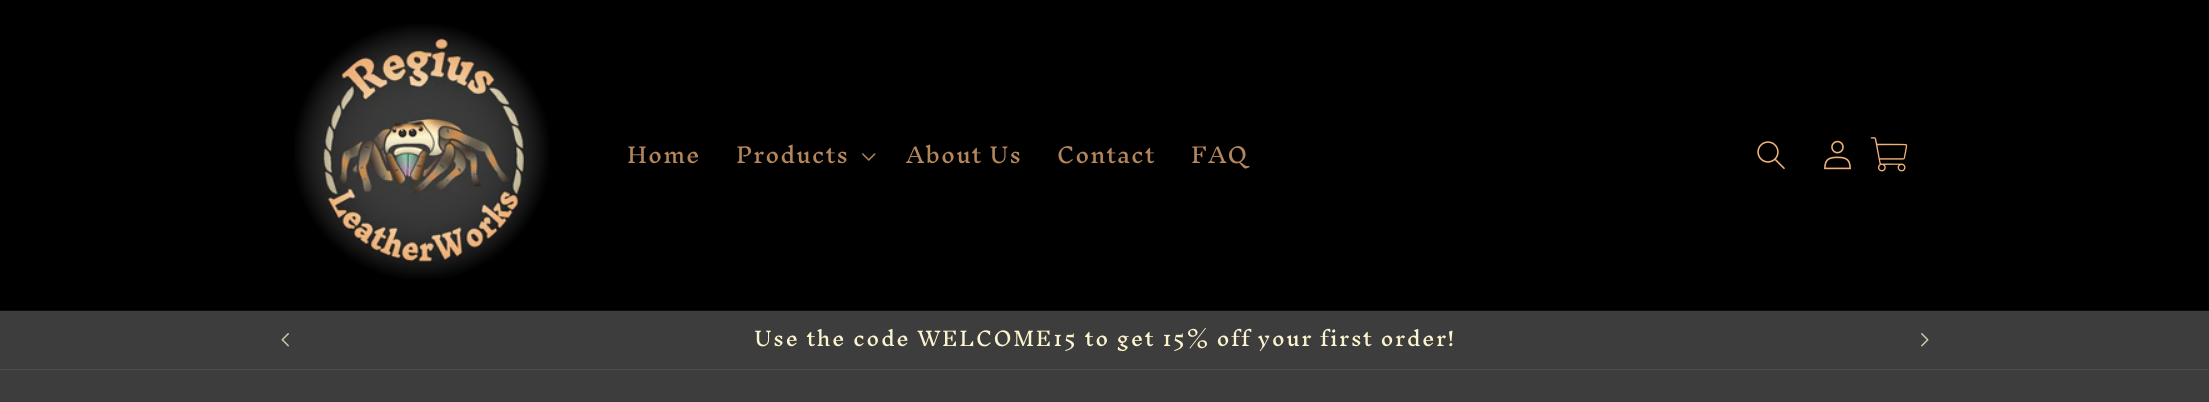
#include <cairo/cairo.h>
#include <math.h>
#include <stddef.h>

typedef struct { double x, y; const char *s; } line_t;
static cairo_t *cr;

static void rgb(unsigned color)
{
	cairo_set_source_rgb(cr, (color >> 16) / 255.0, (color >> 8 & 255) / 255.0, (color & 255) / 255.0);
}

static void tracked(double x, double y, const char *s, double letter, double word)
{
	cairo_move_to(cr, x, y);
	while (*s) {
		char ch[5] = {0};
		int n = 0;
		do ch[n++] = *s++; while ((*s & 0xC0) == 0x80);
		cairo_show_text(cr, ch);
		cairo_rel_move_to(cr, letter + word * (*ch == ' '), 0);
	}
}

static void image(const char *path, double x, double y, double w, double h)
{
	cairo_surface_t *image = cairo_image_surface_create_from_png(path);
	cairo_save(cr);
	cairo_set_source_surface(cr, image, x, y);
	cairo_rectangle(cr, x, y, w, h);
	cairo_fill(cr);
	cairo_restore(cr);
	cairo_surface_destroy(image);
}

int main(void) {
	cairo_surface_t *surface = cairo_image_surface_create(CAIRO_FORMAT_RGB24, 2209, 402);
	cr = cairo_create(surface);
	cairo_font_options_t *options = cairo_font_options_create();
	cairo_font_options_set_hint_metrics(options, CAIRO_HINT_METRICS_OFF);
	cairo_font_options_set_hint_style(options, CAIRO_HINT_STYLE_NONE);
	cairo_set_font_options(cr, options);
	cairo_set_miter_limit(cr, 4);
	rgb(0x3c3d3c);
	cairo_paint(cr);
	rgb(0x000000);
	cairo_rectangle(cr, 0, 0, 2209, 310);
	cairo_fill(cr);
	rgb(0x130e0a);
	cairo_rectangle(cr, 0, 310, 2209, 1);
	cairo_fill(cr);
	image("img/1.png", 294, 24, 255, 255);
	image("img/2.png", 862, 153, 14, 8);
	image("img/3.png", 1757, 141, 28, 28);
	image("img/4.png", 1824, 140, 27, 30);
	image("img/5.png", 1870, 137, 38, 35);
	rgb(0x4b4c48);
	cairo_rectangle(cr, 0, 369, 2209, 1);
	cairo_fill(cr);
	image("img/6.png", 281, 333, 8, 14);
	image("img/7.png", 1921, 333, 8, 14);
	cairo_select_font_face(cr, "Inknut Antiqua", CAIRO_FONT_SLANT_NORMAL, CAIRO_FONT_WEIGHT_NORMAL);
	cairo_set_font_size(cr, 21);
	rgb(0xb4865c);
	{
		static const line_t items[] = {
			{627, 163, "Home"},
			{736, 163, "Products"},
			{906, 163, "About Us"},
			{1057, 163, "Contact"},
			{1191, 163, "FAQ"},
		};
		for (size_t i = 0; i < sizeof items / sizeof *items; i++) {
			tracked(items[i].x, items[i].y, items[i].s, 1, 0);
		}
	}
	cairo_set_font_size(cr, 19.5);
	rgb(0xfcf3cf);
	tracked(754, 346, "Use the code WELCOME15 to get 15% off your first order!", 1.5, 0);
	cairo_surface_write_to_png(surface, "page.png");
	cairo_font_options_destroy(options);
	cairo_destroy(cr);
	cairo_surface_destroy(surface);
	return 0;
}
